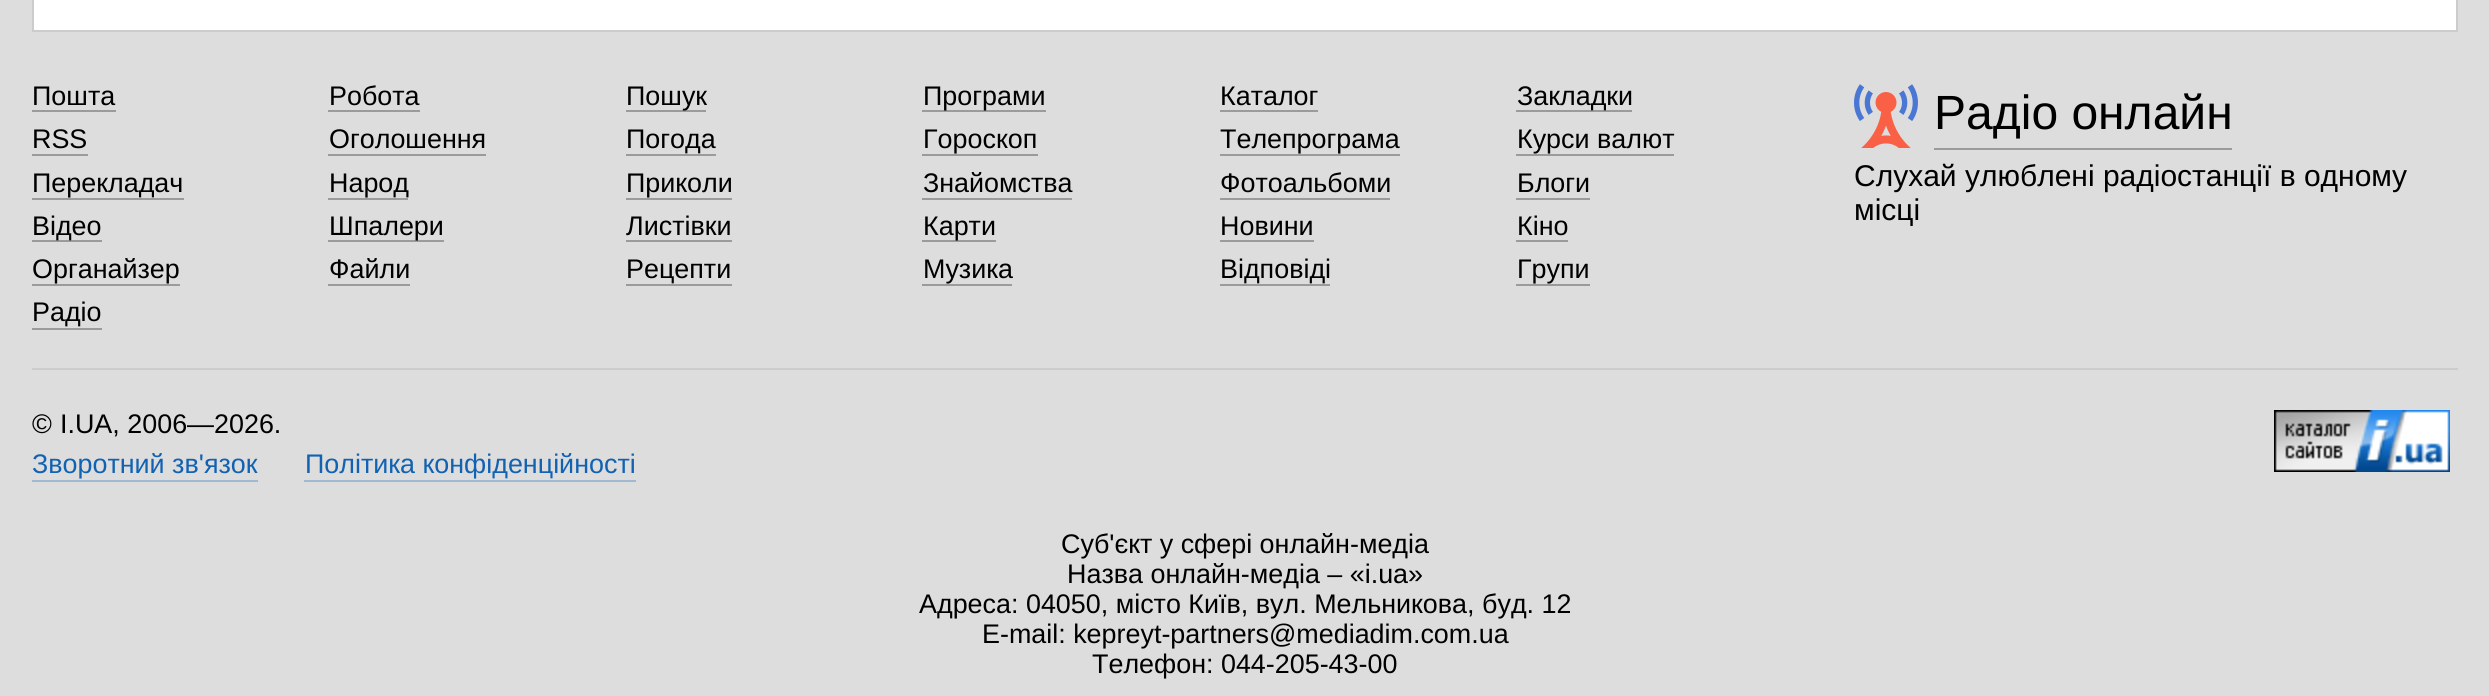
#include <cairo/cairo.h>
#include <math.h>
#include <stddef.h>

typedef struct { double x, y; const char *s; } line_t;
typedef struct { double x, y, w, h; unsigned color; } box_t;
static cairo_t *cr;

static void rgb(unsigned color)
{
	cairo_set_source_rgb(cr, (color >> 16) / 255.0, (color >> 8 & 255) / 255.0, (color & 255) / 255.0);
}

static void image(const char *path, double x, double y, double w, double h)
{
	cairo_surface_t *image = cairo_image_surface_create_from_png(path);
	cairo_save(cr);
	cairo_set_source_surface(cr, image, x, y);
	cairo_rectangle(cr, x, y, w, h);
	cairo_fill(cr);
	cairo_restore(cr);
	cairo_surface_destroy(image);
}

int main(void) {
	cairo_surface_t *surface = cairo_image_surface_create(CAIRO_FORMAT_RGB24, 2489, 696);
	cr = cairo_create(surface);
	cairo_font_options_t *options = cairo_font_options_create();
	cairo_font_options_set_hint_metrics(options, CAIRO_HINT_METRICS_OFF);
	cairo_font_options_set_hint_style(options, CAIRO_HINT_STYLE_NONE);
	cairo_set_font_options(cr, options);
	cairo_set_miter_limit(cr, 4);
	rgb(0xdddddd);
	cairo_paint(cr);
	rgb(0xffffff);
	cairo_rectangle(cr, 33, -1, 2424, 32);
	cairo_fill_preserve(cr);
	rgb(0xcccccc);
	cairo_stroke(cr);
	{
		static const box_t items[] = {
			{32, 110, 84, 2, 0x9b9b9b},
			{328, 110, 92, 2, 0x9b9b9b},
			{626, 110, 80, 2, 0x9b9b9b},
			{922, 110, 124, 2, 0x9b9b9b},
			{1220, 110, 98, 2, 0x9b9b9b},
			{1516, 110, 116, 2, 0x9b9b9b},
			{32, 154, 56, 2, 0x9b9b9b},
			{328, 154, 158, 2, 0x9b9b9b},
			{626, 154, 90, 2, 0x9b9b9b},
			{922, 154, 116, 2, 0x9b9b9b},
			{1220, 154, 180, 2, 0x9b9b9b},
			{1516, 154, 158, 2, 0x9b9b9b},
			{32, 198, 152, 2, 0x9b9b9b},
			{328, 198, 80, 2, 0x9b9b9b},
			{626, 198, 106, 2, 0x9b9b9b},
			{922, 198, 150, 2, 0x9b9b9b},
			{1220, 198, 170, 2, 0x9b9b9b},
			{1516, 198, 74, 2, 0x9b9b9b},
			{32, 240, 70, 2, 0x9b9b9b},
			{328, 240, 116, 2, 0x9b9b9b},
			{626, 240, 106, 2, 0x9b9b9b},
			{922, 240, 74, 2, 0x9b9b9b},
			{1220, 240, 94, 2, 0x9b9b9b},
			{1516, 240, 52, 2, 0x9b9b9b},
			{32, 284, 148, 2, 0x9b9b9b},
			{328, 284, 82, 2, 0x9b9b9b},
			{626, 284, 106, 2, 0x9b9b9b},
			{922, 284, 90, 2, 0x9b9b9b},
			{1220, 284, 110, 2, 0x9b9b9b},
			{1516, 284, 74, 2, 0x9b9b9b},
			{32, 328, 70, 2, 0x9b9b9b},
			{1934, 148, 298, 2, 0x9b9b9b},
		};
		for (size_t i = 0; i < sizeof items / sizeof *items; i++) {
			rgb(items[i].color);
			cairo_rectangle(cr, items[i].x, items[i].y, items[i].w, items[i].h);
			cairo_fill(cr);
		}
	}
	image("img/1.png", 1854, 84, 64, 64);
	rgb(0xcccccc);
	cairo_rectangle(cr, 32, 368, 2426, 2);
	cairo_fill(cr);
	image("img/2.png", 2274, 410, 176, 62);
	rgb(0xa0b8d0);
	cairo_rectangle(cr, 32, 480, 226, 2);
	cairo_fill(cr);
	cairo_rectangle(cr, 304, 480, 332, 2);
	cairo_fill(cr);
	cairo_select_font_face(cr, "Liberation Sans", CAIRO_FONT_SLANT_NORMAL, CAIRO_FONT_WEIGHT_NORMAL);
	cairo_set_font_size(cr, 26.9);
	rgb(0x000000);
	{
		static const line_t items[] = {
			{32, 105, "Пошта"},
			{329, 105, "Робота"},
			{626, 105, "Пошук"},
			{923, 105, "Програми"},
			{1220, 105, "Каталог"},
			{1517, 105, "Закладки"},
			{32, 148, "RSS"},
			{329, 148, "Оголошення"},
			{626, 148, "Погода"},
			{923, 148, "Гороскоп"},
			{1220, 148, "Телепрограма"},
			{1517, 148, "Курси валют"},
			{32, 192, "Перекладач"},
			{329, 192, "Народ"},
			{626, 192, "Приколи"},
			{923, 192, "Знайомства"},
			{1220, 192, "Фотоальбоми"},
			{1517, 192, "Блоги"},
			{32, 235, "Відео"},
			{329, 235, "Шпалери"},
			{626, 235, "Листівки"},
			{923, 235, "Карти"},
			{1220, 235, "Новини"},
			{1517, 235, "Кіно"},
			{32, 278, "Органайзер"},
			{329, 278, "Файли"},
			{626, 278, "Рецепти"},
			{923, 278, "Музика"},
			{1220, 278, "Відповіді"},
			{1517, 278, "Групи"},
			{32, 321, "Радіо"},
		};
		for (size_t i = 0; i < sizeof items / sizeof *items; i++) {
			cairo_move_to(cr, items[i].x, items[i].y);
			cairo_show_text(cr, items[i].s);
		}
	}
	cairo_set_font_size(cr, 48);
	cairo_move_to(cr, 1934, 129);
	cairo_show_text(cr, "Радіо онлайн");
	cairo_set_font_size(cr, 30);
	cairo_move_to(cr, 1854, 186);
	cairo_show_text(cr, "Слухай улюблені радіостанції в одному");
	cairo_move_to(cr, 1854, 220);
	cairo_show_text(cr, "місці");
	cairo_set_font_size(cr, 26.9);
	cairo_move_to(cr, 32, 433);
	cairo_show_text(cr, "©");
	cairo_move_to(cr, 60, 433);
	cairo_show_text(cr, "I.UA, 2006—2026.");
	rgb(0x1162b3);
	cairo_move_to(cr, 32, 473);
	cairo_show_text(cr, "Зворотний зв'язок");
	cairo_move_to(cr, 305, 473);
	cairo_show_text(cr, "Політика конфіденційності");
	rgb(0x000000);
	{
		static const line_t items[] = {
			{1061, 553, "Суб'єкт у сфері онлайн-медіа"},
			{1067, 583, "Назва онлайн-медіа – «i.ua»"},
			{919, 613, "Адреса: 04050, місто Київ, вул. Мельникова, буд. 12"},
			{982, 643, "E-mail: kepreyt-partners@mediadim.com.ua"},
			{1092, 673, "Телефон: 044-205-43-00"},
		};
		for (size_t i = 0; i < sizeof items / sizeof *items; i++) {
			cairo_move_to(cr, items[i].x, items[i].y);
			cairo_show_text(cr, items[i].s);
		}
	}
	cairo_surface_write_to_png(surface, "page.png");
	cairo_font_options_destroy(options);
	cairo_destroy(cr);
	cairo_surface_destroy(surface);
	return 0;
}
